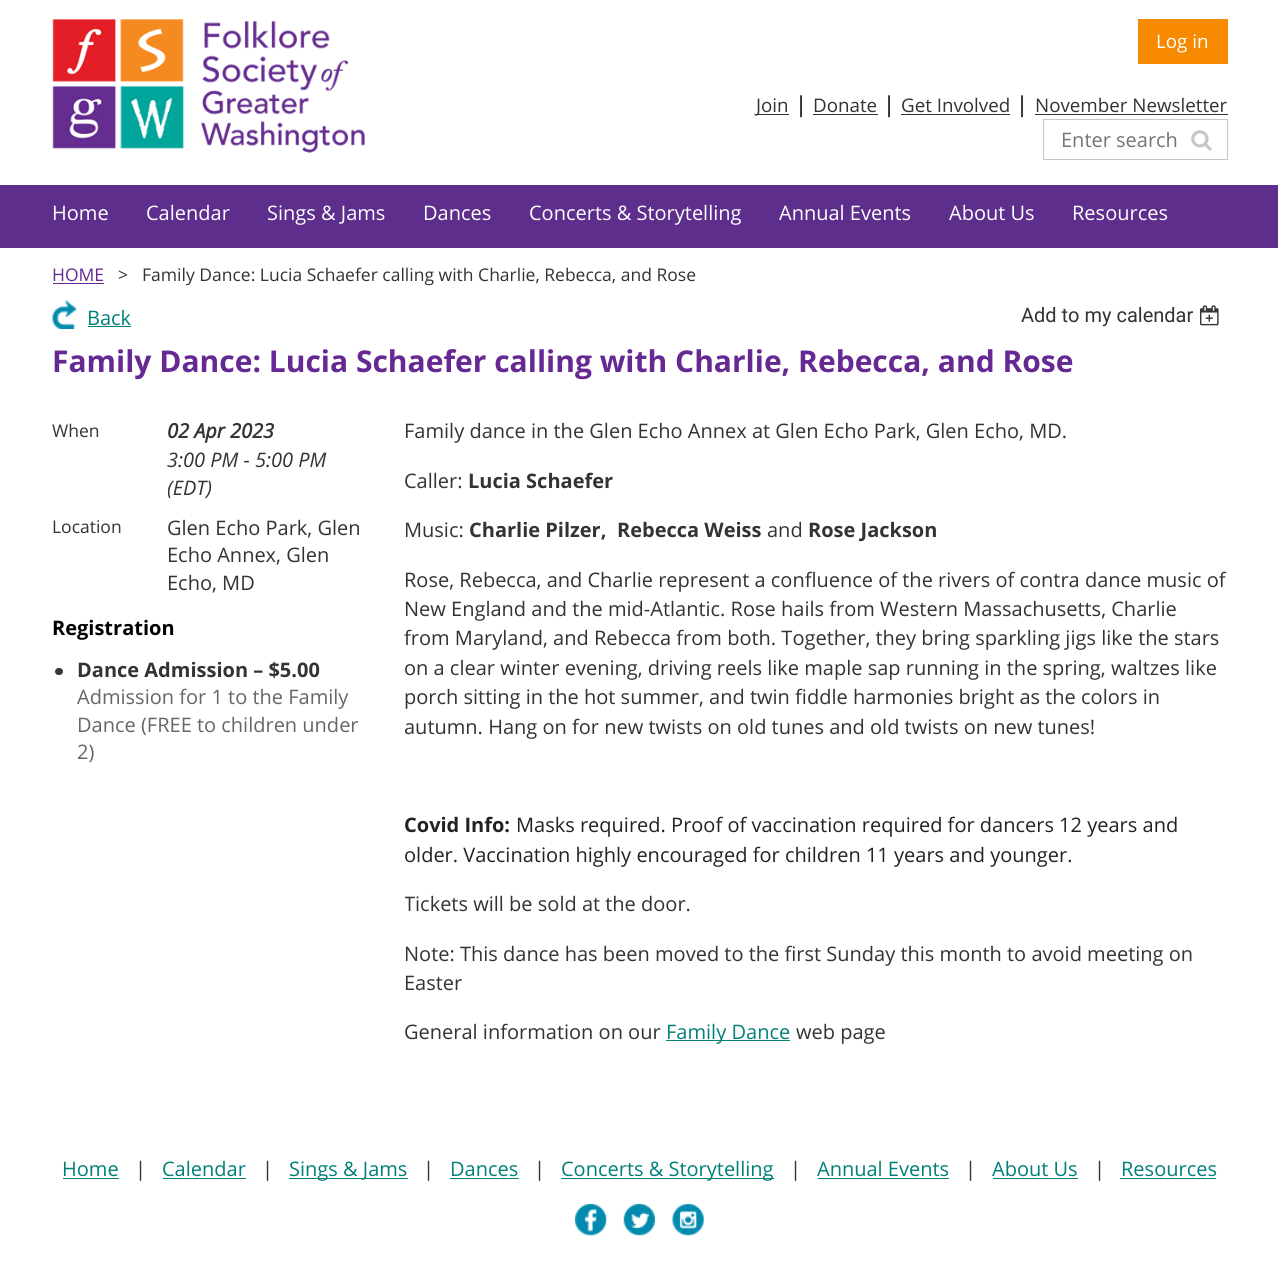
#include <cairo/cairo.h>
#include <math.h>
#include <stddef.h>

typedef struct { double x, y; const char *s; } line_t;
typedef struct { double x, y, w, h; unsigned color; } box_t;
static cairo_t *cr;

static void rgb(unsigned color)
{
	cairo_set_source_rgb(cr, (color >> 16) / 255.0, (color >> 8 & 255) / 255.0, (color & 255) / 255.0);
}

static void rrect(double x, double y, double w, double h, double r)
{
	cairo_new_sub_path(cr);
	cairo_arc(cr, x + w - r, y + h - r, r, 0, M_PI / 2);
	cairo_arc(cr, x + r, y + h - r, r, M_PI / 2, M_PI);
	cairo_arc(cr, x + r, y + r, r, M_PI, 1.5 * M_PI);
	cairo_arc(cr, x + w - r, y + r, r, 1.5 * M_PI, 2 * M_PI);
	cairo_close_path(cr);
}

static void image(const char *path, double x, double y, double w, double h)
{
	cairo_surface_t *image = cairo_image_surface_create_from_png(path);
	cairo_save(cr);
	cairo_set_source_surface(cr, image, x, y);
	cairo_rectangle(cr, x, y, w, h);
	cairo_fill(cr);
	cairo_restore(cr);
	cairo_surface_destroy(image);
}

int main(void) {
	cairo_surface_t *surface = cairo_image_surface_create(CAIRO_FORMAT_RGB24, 1278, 1286);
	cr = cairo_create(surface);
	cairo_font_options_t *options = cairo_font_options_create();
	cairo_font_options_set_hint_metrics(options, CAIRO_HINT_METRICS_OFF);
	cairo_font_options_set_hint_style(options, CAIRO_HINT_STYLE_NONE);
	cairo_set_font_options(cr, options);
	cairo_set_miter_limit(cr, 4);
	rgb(0xffffff);
	cairo_paint(cr);
	image("img/1.png", 52, 19, 313, 134);
	{
		static const box_t items[] = {
			{1138, 19, 90, 45, 0xf78a00},
			{756, 114, 33, 1, 0x333333},
			{813, 114, 65, 1, 0x333333},
			{901, 114, 109, 1, 0x333333},
			{1035, 114, 193, 1, 0x333333},
		};
		for (size_t i = 0; i < sizeof items / sizeof *items; i++) {
			rgb(items[i].color);
			cairo_rectangle(cr, items[i].x, items[i].y, items[i].w, items[i].h);
			cairo_fill(cr);
		}
	}
	cairo_rectangle(cr, 1043.5, 119.5, 184, 40);
	rgb(0xc6c6c6);
	cairo_set_line_width(cr, 1);
	cairo_stroke(cr);
	image("img/2.png", 1191, 130, 21, 21);
	rgb(0x5d2e8c);
	cairo_rectangle(cr, 0, 185, 1278, 63);
	cairo_fill(cr);
	rgb(0x662892);
	cairo_rectangle(cr, 53, 283, 51, 1);
	cairo_fill(cr);
	image("img/3.png", 52, 300, 25, 29);
	rgb(0x008079);
	cairo_rectangle(cr, 88, 326, 43, 1);
	cairo_fill(cr);
	image("img/4.png", 1200, 305, 19, 21);
	rgb(0x373737);
	rrect(55, 668, 8, 7, 3.5);
	cairo_fill(cr);
	{
		static const box_t items[] = {
			{666, 1040, 124, 1, 0x008079},
			{63, 1178, 56, 1, 0x008079},
			{163, 1178, 83, 1, 0x008079},
			{289, 1178, 119, 1, 0x008079},
			{450, 1178, 69, 1, 0x008079},
			{561, 1178, 213, 1, 0x008079},
			{818, 1178, 131, 1, 0x008079},
			{993, 1178, 85, 1, 0x008079},
			{1120, 1178, 96, 1, 0x008079},
		};
		for (size_t i = 0; i < sizeof items / sizeof *items; i++) {
			rgb(items[i].color);
			cairo_rectangle(cr, items[i].x, items[i].y, items[i].w, items[i].h);
			cairo_fill(cr);
		}
	}
	image("img/5.png", 575, 1204, 32, 32);
	image("img/6.png", 623, 1204, 32, 32);
	image("img/7.png", 672, 1204, 32, 32);
	cairo_select_font_face(cr, "Open Sans", CAIRO_FONT_SLANT_NORMAL, CAIRO_FONT_WEIGHT_NORMAL);
	cairo_set_font_size(cr, 18.75);
	rgb(0xffffff);
	cairo_move_to(cr, 1156, 48);
	cairo_show_text(cr, "Log in");
	rgb(0x333333);
	cairo_move_to(cr, 756, 112);
	cairo_show_text(cr, "Join");
	cairo_select_font_face(cr, "Open Sans SemiBold", CAIRO_FONT_SLANT_NORMAL, CAIRO_FONT_WEIGHT_NORMAL);
	cairo_set_font_size(cr, 22);
	cairo_move_to(cr, 795, 112);
	cairo_show_text(cr, "|");
	cairo_select_font_face(cr, "Open Sans", CAIRO_FONT_SLANT_NORMAL, CAIRO_FONT_WEIGHT_NORMAL);
	cairo_set_font_size(cr, 18.75);
	cairo_move_to(cr, 813, 112);
	cairo_show_text(cr, "Donate");
	cairo_select_font_face(cr, "Open Sans SemiBold", CAIRO_FONT_SLANT_NORMAL, CAIRO_FONT_WEIGHT_NORMAL);
	cairo_set_font_size(cr, 22);
	cairo_move_to(cr, 883, 112);
	cairo_show_text(cr, "|");
	cairo_select_font_face(cr, "Open Sans", CAIRO_FONT_SLANT_NORMAL, CAIRO_FONT_WEIGHT_NORMAL);
	cairo_set_font_size(cr, 18.75);
	cairo_move_to(cr, 901, 112);
	cairo_show_text(cr, "Get Involved");
	cairo_select_font_face(cr, "Open Sans SemiBold", CAIRO_FONT_SLANT_NORMAL, CAIRO_FONT_WEIGHT_NORMAL);
	cairo_set_font_size(cr, 22);
	cairo_move_to(cr, 1016, 112);
	cairo_show_text(cr, "|");
	cairo_select_font_face(cr, "Open Sans", CAIRO_FONT_SLANT_NORMAL, CAIRO_FONT_WEIGHT_NORMAL);
	cairo_set_font_size(cr, 18.75);
	cairo_move_to(cr, 1035, 112);
	cairo_show_text(cr, "November Newsletter");
	cairo_set_font_size(cr, 20);
	rgb(0x757575);
	cairo_move_to(cr, 1061, 147);
	cairo_show_text(cr, "Enter search");
	rgb(0xffffff);
	{
		static const line_t items[] = {
			{52, 220, "Home"},
			{146, 220, "Calendar"},
			{267, 220, "Sings & Jams"},
			{423, 220, "Dances"},
			{529, 220, "Concerts & Storytelling"},
			{779, 220, "Annual Events"},
			{949, 220, "About Us"},
			{1072, 220, "Resources"},
		};
		for (size_t i = 0; i < sizeof items / sizeof *items; i++) {
			cairo_move_to(cr, items[i].x, items[i].y);
			cairo_show_text(cr, items[i].s);
		}
	}
	cairo_set_font_size(cr, 17.5);
	rgb(0x662892);
	cairo_move_to(cr, 52, 281);
	cairo_show_text(cr, "HOME");
	rgb(0x333333);
	cairo_move_to(cr, 118, 281);
	cairo_show_text(cr, ">");
	cairo_move_to(cr, 142, 281);
	cairo_show_text(cr, "Family Dance: Lucia Schaefer calling with Charlie, Rebecca, and Rose");
	cairo_set_font_size(cr, 20);
	rgb(0x008079);
	cairo_move_to(cr, 87, 325);
	cairo_show_text(cr, "Back");
	cairo_select_font_face(cr, "Roboto", CAIRO_FONT_SLANT_NORMAL, CAIRO_FONT_WEIGHT_NORMAL);
	rgb(0x333333);
	cairo_move_to(cr, 1021, 322);
	cairo_show_text(cr, "Add to my calendar");
	cairo_select_font_face(cr, "Open Sans", CAIRO_FONT_SLANT_NORMAL, CAIRO_FONT_WEIGHT_BOLD);
	cairo_set_font_size(cr, 30);
	rgb(0x662892);
	cairo_move_to(cr, 52, 372);
	cairo_show_text(cr, "Family Dance: Lucia Schaefer calling with Charlie, Rebecca, and Rose");
	cairo_select_font_face(cr, "Open Sans", CAIRO_FONT_SLANT_NORMAL, CAIRO_FONT_WEIGHT_NORMAL);
	cairo_set_font_size(cr, 17.5);
	rgb(0x333333);
	cairo_move_to(cr, 52, 437);
	cairo_show_text(cr, "When");
	cairo_select_font_face(cr, "Open Sans", CAIRO_FONT_SLANT_ITALIC, CAIRO_FONT_WEIGHT_BOLD);
	cairo_set_font_size(cr, 20);
	cairo_move_to(cr, 167, 438);
	cairo_show_text(cr, "02 Apr 2023");
	cairo_select_font_face(cr, "Open Sans", CAIRO_FONT_SLANT_ITALIC, CAIRO_FONT_WEIGHT_NORMAL);
	cairo_move_to(cr, 167, 467);
	cairo_show_text(cr, "3:00 PM - 5:00 PM");
	cairo_save(cr);
	cairo_rectangle(cr, 168, 446, 200, 55);
	cairo_clip(cr);
	cairo_move_to(cr, 167, 495);
	cairo_show_text(cr, "(EDT)");
	cairo_restore(cr);
	cairo_select_font_face(cr, "Open Sans", CAIRO_FONT_SLANT_NORMAL, CAIRO_FONT_WEIGHT_NORMAL);
	cairo_set_font_size(cr, 17.5);
	cairo_move_to(cr, 52, 533);
	cairo_show_text(cr, "Location");
	cairo_set_font_size(cr, 20);
	{
		static const line_t items[] = {
			{167, 535, "Glen Echo Park, Glen"},
			{167, 562, "Echo Annex, Glen"},
			{167, 590, "Echo, MD"},
		};
		for (size_t i = 0; i < sizeof items / sizeof *items; i++) {
			cairo_move_to(cr, items[i].x, items[i].y);
			cairo_show_text(cr, items[i].s);
		}
	}
	cairo_select_font_face(cr, "Open Sans", CAIRO_FONT_SLANT_NORMAL, CAIRO_FONT_WEIGHT_BOLD);
	rgb(0x000000);
	cairo_move_to(cr, 52, 635);
	cairo_show_text(cr, "Registration");
	rgb(0x333333);
	cairo_move_to(cr, 77, 677);
	cairo_show_text(cr, "Dance Admission – $5.00");
	cairo_select_font_face(cr, "Open Sans", CAIRO_FONT_SLANT_NORMAL, CAIRO_FONT_WEIGHT_NORMAL);
	rgb(0x666666);
	{
		static const line_t items[] = {
			{77, 704, "Admission for 1 to the Family"},
			{77, 732, "Dance (FREE to children under"},
			{77, 759, "2)"},
		};
		for (size_t i = 0; i < sizeof items / sizeof *items; i++) {
			cairo_move_to(cr, items[i].x, items[i].y);
			cairo_show_text(cr, items[i].s);
		}
	}
	rgb(0x333333);
	cairo_move_to(cr, 404, 438);
	cairo_show_text(cr, "Family dance in the Glen Echo Annex at Glen Echo Park, Glen Echo, MD.");
	cairo_move_to(cr, 404, 488);
	cairo_show_text(cr, "Caller:");
	cairo_select_font_face(cr, "Open Sans", CAIRO_FONT_SLANT_NORMAL, CAIRO_FONT_WEIGHT_BOLD);
	cairo_move_to(cr, 468, 488);
	cairo_show_text(cr, "Lucia Schaefer");
	cairo_select_font_face(cr, "Open Sans", CAIRO_FONT_SLANT_NORMAL, CAIRO_FONT_WEIGHT_NORMAL);
	cairo_move_to(cr, 404, 537);
	cairo_show_text(cr, "Music:");
	cairo_select_font_face(cr, "Open Sans", CAIRO_FONT_SLANT_NORMAL, CAIRO_FONT_WEIGHT_BOLD);
	cairo_move_to(cr, 469, 537);
	cairo_show_text(cr, "Charlie Pilzer,");
	cairo_move_to(cr, 617, 537);
	cairo_show_text(cr, "Rebecca Weiss");
	cairo_select_font_face(cr, "Open Sans", CAIRO_FONT_SLANT_NORMAL, CAIRO_FONT_WEIGHT_NORMAL);
	cairo_move_to(cr, 767, 537);
	cairo_show_text(cr, "and");
	cairo_select_font_face(cr, "Open Sans", CAIRO_FONT_SLANT_NORMAL, CAIRO_FONT_WEIGHT_BOLD);
	cairo_move_to(cr, 808, 537);
	cairo_show_text(cr, "Rose Jackson");
	cairo_select_font_face(cr, "Open Sans", CAIRO_FONT_SLANT_NORMAL, CAIRO_FONT_WEIGHT_NORMAL);
	{
		static const line_t items[] = {
			{404, 587, "Rose, Rebecca, and Charlie represent a confluence of the rivers of contra dance music of"},
			{404, 616, "New England and the mid-Atlantic. Rose hails from Western Massachusetts, Charlie"},
			{404, 645, "from Maryland, and Rebecca from both. Together, they bring sparkling jigs like the stars"},
			{404, 675, "on a clear winter evening, driving reels like maple sap running in the spring, waltzes like"},
			{404, 704, "porch sitting in the hot summer, and twin fiddle harmonies bright as the colors in"},
			{404, 734, "autumn. Hang on for new twists on old tunes and old twists on new tunes!"},
		};
		for (size_t i = 0; i < sizeof items / sizeof *items; i++) {
			cairo_move_to(cr, items[i].x, items[i].y);
			cairo_show_text(cr, items[i].s);
		}
	}
	cairo_select_font_face(cr, "Open Sans", CAIRO_FONT_SLANT_NORMAL, CAIRO_FONT_WEIGHT_BOLD);
	rgb(0x222222);
	cairo_move_to(cr, 404, 832);
	cairo_show_text(cr, "Covid Info:");
	cairo_select_font_face(cr, "Open Sans", CAIRO_FONT_SLANT_NORMAL, CAIRO_FONT_WEIGHT_NORMAL);
	cairo_move_to(cr, 516, 832);
	cairo_show_text(cr, "Masks required. Proof of vaccination required for dancers 12 years and");
	cairo_move_to(cr, 404, 862);
	cairo_show_text(cr, "older. Vaccination highly encouraged for children 11 years and younger.");
	cairo_save(cr);
	cairo_rectangle(cr, 405, 418, 823, 650);
	cairo_clip(cr);
	rgb(0x333333);
	cairo_move_to(cr, 404, 911);
	cairo_show_text(cr, "Tickets will be sold at the door.");
	cairo_restore(cr);
	rgb(0x333333);
	{
		static const line_t items[] = {
			{404, 961, "Note: This dance has been moved to the first Sunday this month to avoid meeting on"},
			{404, 990, "Easter"},
			{404, 1039, "General information on our"},
		};
		for (size_t i = 0; i < sizeof items / sizeof *items; i++) {
			cairo_move_to(cr, items[i].x, items[i].y);
			cairo_show_text(cr, items[i].s);
		}
	}
	rgb(0x008079);
	cairo_move_to(cr, 666, 1039);
	cairo_show_text(cr, "Family Dance");
	rgb(0x333333);
	cairo_move_to(cr, 796, 1039);
	cairo_show_text(cr, "web page");
	rgb(0x008079);
	cairo_move_to(cr, 62, 1176);
	cairo_show_text(cr, "Home");
	rgb(0x333333);
	cairo_move_to(cr, 135, 1176);
	cairo_show_text(cr, "|");
	rgb(0x008079);
	cairo_move_to(cr, 162, 1176);
	cairo_show_text(cr, "Calendar");
	rgb(0x333333);
	cairo_move_to(cr, 262, 1176);
	cairo_show_text(cr, "|");
	rgb(0x008079);
	cairo_move_to(cr, 289, 1176);
	cairo_show_text(cr, "Sings & Jams");
	rgb(0x333333);
	cairo_move_to(cr, 423, 1176);
	cairo_show_text(cr, "|");
	rgb(0x008079);
	cairo_move_to(cr, 450, 1176);
	cairo_show_text(cr, "Dances");
	rgb(0x333333);
	cairo_move_to(cr, 534, 1176);
	cairo_show_text(cr, "|");
	rgb(0x008079);
	cairo_move_to(cr, 561, 1176);
	cairo_show_text(cr, "Concerts & Storytelling");
	rgb(0x333333);
	cairo_move_to(cr, 790, 1176);
	cairo_show_text(cr, "|");
	rgb(0x008079);
	cairo_move_to(cr, 817, 1176);
	cairo_show_text(cr, "Annual Events");
	rgb(0x333333);
	cairo_move_to(cr, 965, 1176);
	cairo_show_text(cr, "|");
	rgb(0x008079);
	cairo_move_to(cr, 992, 1176);
	cairo_show_text(cr, "About Us");
	rgb(0x333333);
	cairo_move_to(cr, 1094, 1176);
	cairo_show_text(cr, "|");
	rgb(0x008079);
	cairo_move_to(cr, 1121, 1176);
	cairo_show_text(cr, "Resources");
	cairo_surface_write_to_png(surface, "page.png");
	cairo_font_options_destroy(options);
	cairo_destroy(cr);
	cairo_surface_destroy(surface);
	return 0;
}
